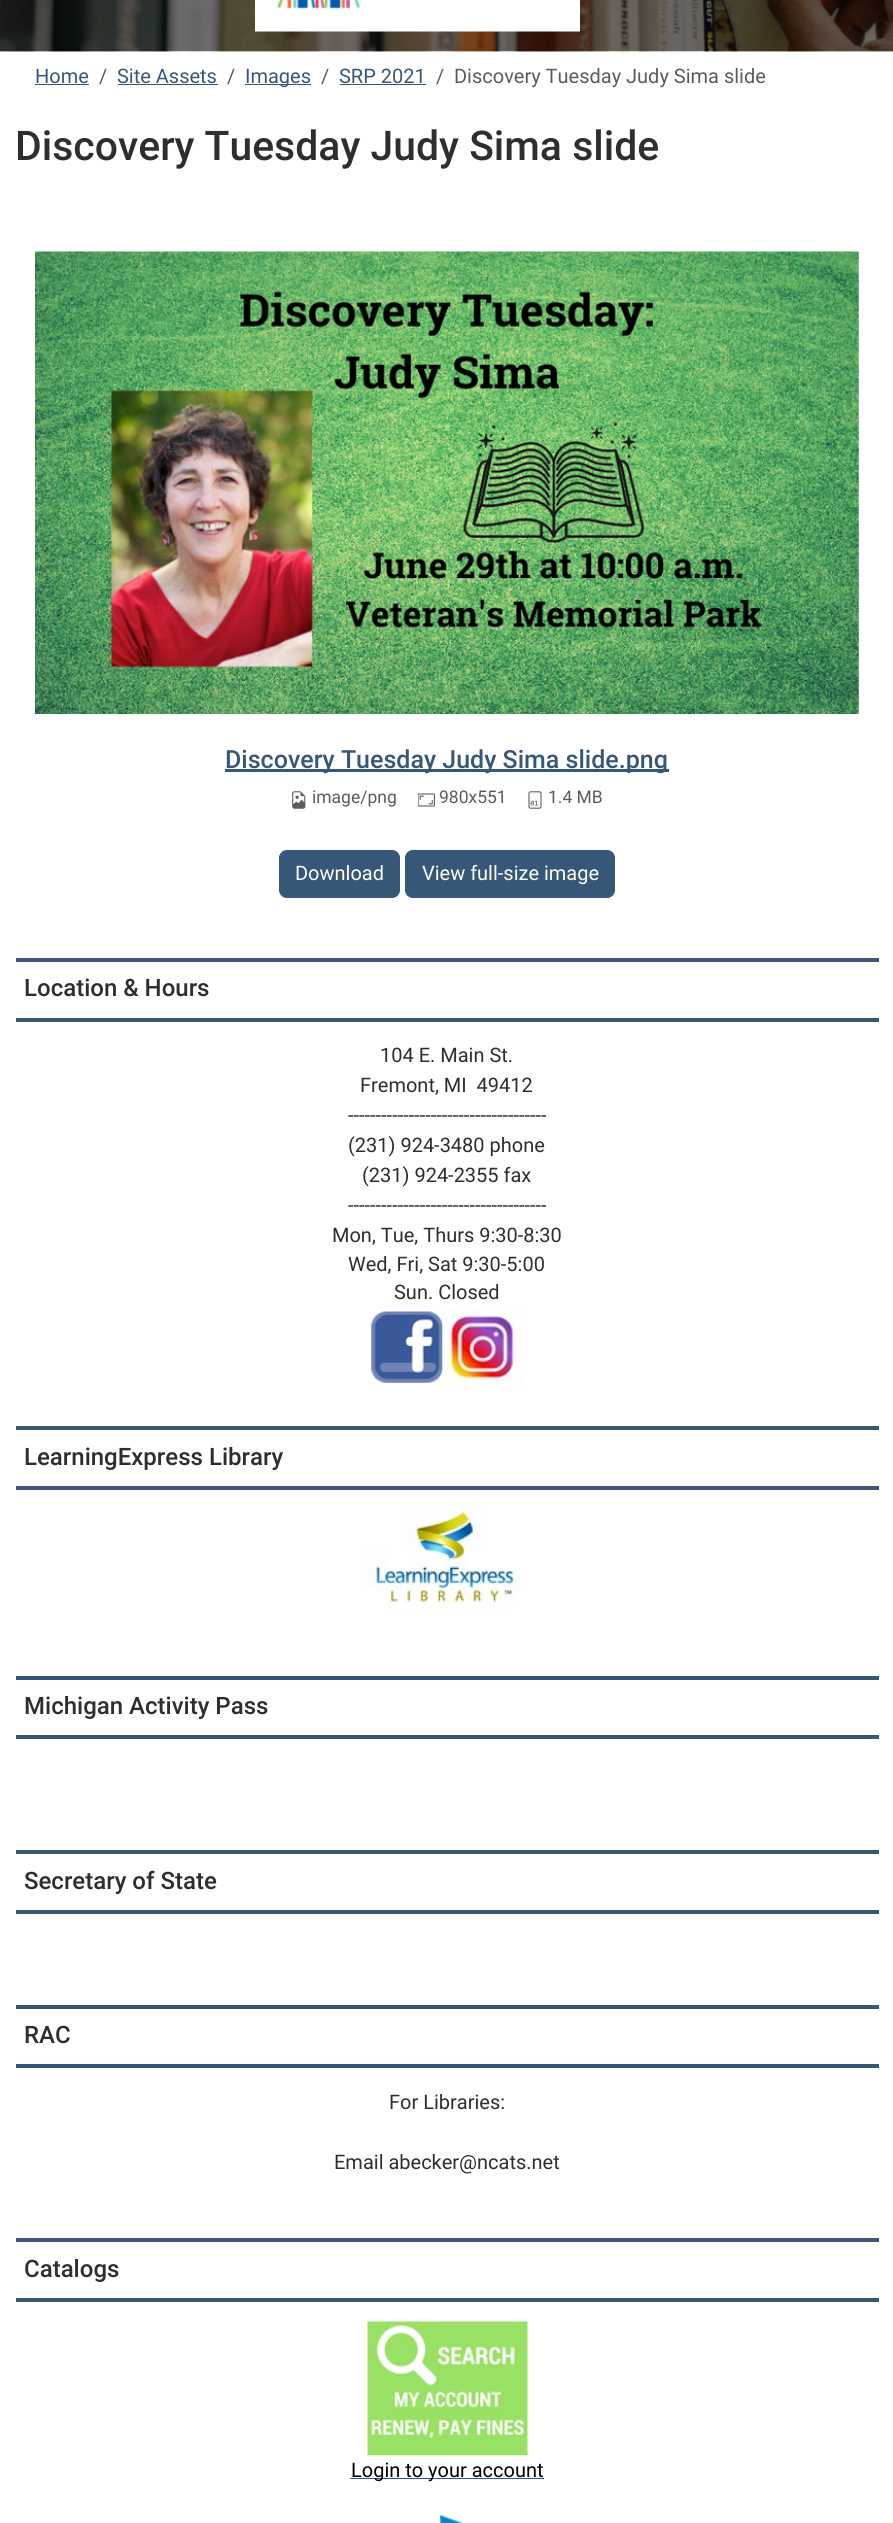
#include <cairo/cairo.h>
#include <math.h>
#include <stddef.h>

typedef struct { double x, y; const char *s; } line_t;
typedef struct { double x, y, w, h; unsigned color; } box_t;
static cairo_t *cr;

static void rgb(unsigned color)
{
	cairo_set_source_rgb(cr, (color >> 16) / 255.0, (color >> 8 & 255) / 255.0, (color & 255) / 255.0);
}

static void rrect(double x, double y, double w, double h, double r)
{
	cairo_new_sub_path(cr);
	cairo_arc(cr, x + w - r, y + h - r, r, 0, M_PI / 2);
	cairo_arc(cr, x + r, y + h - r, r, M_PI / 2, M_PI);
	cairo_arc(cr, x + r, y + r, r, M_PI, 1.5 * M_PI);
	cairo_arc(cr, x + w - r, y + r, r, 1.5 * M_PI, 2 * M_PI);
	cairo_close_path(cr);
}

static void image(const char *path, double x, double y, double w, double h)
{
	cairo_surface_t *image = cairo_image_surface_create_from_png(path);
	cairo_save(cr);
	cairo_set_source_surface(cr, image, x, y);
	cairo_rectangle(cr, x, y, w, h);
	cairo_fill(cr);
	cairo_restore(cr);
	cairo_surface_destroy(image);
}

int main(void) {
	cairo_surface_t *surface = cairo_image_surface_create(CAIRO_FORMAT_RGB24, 893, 2523);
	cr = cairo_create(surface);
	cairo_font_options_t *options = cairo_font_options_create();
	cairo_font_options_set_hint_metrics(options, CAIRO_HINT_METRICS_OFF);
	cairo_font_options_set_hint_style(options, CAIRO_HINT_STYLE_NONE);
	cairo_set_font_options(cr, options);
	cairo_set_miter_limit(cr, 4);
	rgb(0xffffff);
	cairo_paint(cr);
	image("img/1.png", 0, 0, 893, 52);
	image("img/2.png", 255, 0, 325, 32);
	{
		static const box_t items[] = {
			{35, 84, 54, 1, 0x375779},
			{118, 84, 100, 1, 0x375779},
			{245, 84, 66, 1, 0x375779},
			{340, 84, 86, 1, 0x375779},
		};
		for (size_t i = 0; i < sizeof items / sizeof *items; i++) {
			rgb(items[i].color);
			cairo_rectangle(cr, items[i].x, items[i].y, items[i].w, items[i].h);
			cairo_fill(cr);
		}
	}
	image("img/3.png", 35, 251, 824, 463);
	cairo_rectangle(cr, 225, 769, 444, 3);
	cairo_fill(cr);
	image("img/4.png", 292, 791, 14, 18);
	image("img/5.png", 418, 793, 17, 14);
	image("img/6.png", 528, 791, 14, 18);
	rrect(279.5, 850.5, 120, 47, 7.5);
	cairo_fill_preserve(cr);
	cairo_set_line_width(cr, 1);
	cairo_stroke(cr);
	rrect(405.5, 850.5, 209, 47, 7.5);
	cairo_fill_preserve(cr);
	cairo_stroke(cr);
	cairo_rectangle(cr, 16, 958, 863, 4);
	cairo_fill(cr);
	cairo_rectangle(cr, 16, 1018, 863, 4);
	cairo_fill(cr);
	image("img/7.png", 371, 1311, 72, 72);
	image("img/8.png", 442, 1308, 81, 79);
	cairo_rectangle(cr, 16, 1426, 863, 4);
	cairo_fill(cr);
	cairo_rectangle(cr, 16, 1486, 863, 4);
	cairo_fill(cr);
	image("img/9.png", 367, 1510, 161, 100);
	{
		static const box_t items[] = {
			{16, 1676, 863, 4, 0x375779},
			{16, 1735, 863, 4, 0x375779},
			{16, 1850, 863, 4, 0x375779},
			{16, 1910, 863, 4, 0x375779},
			{16, 2005, 863, 4, 0x375779},
			{16, 2064, 863, 4, 0x375779},
			{16, 2238, 863, 4, 0x375779},
			{16, 2298, 863, 4, 0x375779},
		};
		for (size_t i = 0; i < sizeof items / sizeof *items; i++) {
			rgb(items[i].color);
			cairo_rectangle(cr, items[i].x, items[i].y, items[i].w, items[i].h);
			cairo_fill(cr);
		}
	}
	image("img/10.png", 367, 2321, 161, 135);
	cairo_rectangle(cr, 350, 2478, 194, 1);
	cairo_fill(cr);
	image("img/11.png", 439, 2515, 26, 8);
	cairo_select_font_face(cr, "Roboto", CAIRO_FONT_SLANT_NORMAL, CAIRO_FONT_WEIGHT_NORMAL);
	cairo_set_font_size(cr, 20);
	cairo_move_to(cr, 35, 83);
	cairo_show_text(cr, "Home");
	rgb(0x595c5f);
	cairo_move_to(cr, 99, 83);
	cairo_show_text(cr, "/");
	rgb(0x375779);
	cairo_move_to(cr, 117, 83);
	cairo_show_text(cr, "Site Assets");
	rgb(0x595c5f);
	cairo_move_to(cr, 227, 83);
	cairo_show_text(cr, "/");
	rgb(0x375779);
	cairo_move_to(cr, 245, 83);
	cairo_show_text(cr, "Images");
	rgb(0x595c5f);
	cairo_move_to(cr, 321, 83);
	cairo_show_text(cr, "/");
	rgb(0x375779);
	cairo_move_to(cr, 339, 83);
	cairo_show_text(cr, "SRP 2021");
	rgb(0x595c5f);
	cairo_move_to(cr, 436, 83);
	cairo_show_text(cr, "/");
	cairo_move_to(cr, 454, 83);
	cairo_show_text(cr, "Discovery Tuesday Judy Sima slide");
	cairo_select_font_face(cr, "Roboto Medium", CAIRO_FONT_SLANT_NORMAL, CAIRO_FONT_WEIGHT_NORMAL);
	cairo_set_font_size(cr, 40.9);
	rgb(0x2e2e2e);
	cairo_move_to(cr, 15, 160);
	cairo_show_text(cr, "Discovery Tuesday Judy Sima slide");
	cairo_set_font_size(cr, 25);
	rgb(0x375779);
	cairo_move_to(cr, 225, 768);
	cairo_show_text(cr, "Discovery Tuesday Judy Sima slide.png");
	cairo_select_font_face(cr, "Roboto", CAIRO_FONT_SLANT_NORMAL, CAIRO_FONT_WEIGHT_NORMAL);
	cairo_set_font_size(cr, 17.5);
	rgb(0x595c5f);
	{
		static const line_t items[] = {
			{312, 803, "image/png"},
			{439, 803, "980x551"},
			{548, 803, "1.4 MB"},
		};
		for (size_t i = 0; i < sizeof items / sizeof *items; i++) {
			cairo_move_to(cr, items[i].x, items[i].y);
			cairo_show_text(cr, items[i].s);
		}
	}
	cairo_set_font_size(cr, 20);
	rgb(0xffffff);
	cairo_move_to(cr, 295, 880);
	cairo_show_text(cr, "Download");
	cairo_move_to(cr, 422, 880);
	cairo_show_text(cr, "View full-size image");
	cairo_select_font_face(cr, "Roboto Medium", CAIRO_FONT_SLANT_NORMAL, CAIRO_FONT_WEIGHT_NORMAL);
	cairo_set_font_size(cr, 24);
	rgb(0x2e2e2e);
	cairo_move_to(cr, 24, 996);
	cairo_show_text(cr, "Location & Hours");
	cairo_select_font_face(cr, "Roboto", CAIRO_FONT_SLANT_NORMAL, CAIRO_FONT_WEIGHT_NORMAL);
	cairo_set_font_size(cr, 20);
	{
		static const line_t items[] = {
			{380, 1062, "104 E. Main St."},
			{360, 1092, "Fremont, MI  49412"},
			{348, 1122, "------------------------------------"},
			{348, 1152, "(231) 924-3480 phone"},
			{362, 1182, "(231) 924-2355 fax"},
			{348, 1212, "------------------------------------"},
			{332, 1242, "Mon, Tue, Thurs 9:30-8:30"},
			{348, 1271, "Wed, Fri, Sat 9:30-5:00"},
			{394, 1299, "Sun. Closed"},
		};
		for (size_t i = 0; i < sizeof items / sizeof *items; i++) {
			cairo_move_to(cr, items[i].x, items[i].y);
			cairo_show_text(cr, items[i].s);
		}
	}
	cairo_select_font_face(cr, "Roboto Medium", CAIRO_FONT_SLANT_NORMAL, CAIRO_FONT_WEIGHT_NORMAL);
	cairo_set_font_size(cr, 24);
	{
		static const line_t items[] = {
			{24, 1465, "LearningExpress Library"},
			{24, 1714, "Michigan Activity Pass"},
			{24, 1889, "Secretary of State"},
			{24, 2043, "RAC"},
		};
		for (size_t i = 0; i < sizeof items / sizeof *items; i++) {
			cairo_move_to(cr, items[i].x, items[i].y);
			cairo_show_text(cr, items[i].s);
		}
	}
	cairo_select_font_face(cr, "Roboto", CAIRO_FONT_SLANT_NORMAL, CAIRO_FONT_WEIGHT_NORMAL);
	cairo_set_font_size(cr, 20);
	cairo_move_to(cr, 389, 2109);
	cairo_show_text(cr, "For Libraries:");
	cairo_move_to(cr, 334, 2169);
	cairo_show_text(cr, "Email abecker@ncats.net");
	cairo_select_font_face(cr, "Roboto Medium", CAIRO_FONT_SLANT_NORMAL, CAIRO_FONT_WEIGHT_NORMAL);
	cairo_set_font_size(cr, 24);
	cairo_move_to(cr, 24, 2277);
	cairo_show_text(cr, "Catalogs");
	cairo_select_font_face(cr, "Roboto", CAIRO_FONT_SLANT_NORMAL, CAIRO_FONT_WEIGHT_NORMAL);
	cairo_set_font_size(cr, 20);
	rgb(0x000000);
	cairo_move_to(cr, 351, 2477);
	cairo_show_text(cr, "Login to your account");
	cairo_surface_write_to_png(surface, "page.png");
	cairo_font_options_destroy(options);
	cairo_destroy(cr);
	cairo_surface_destroy(surface);
	return 0;
}
